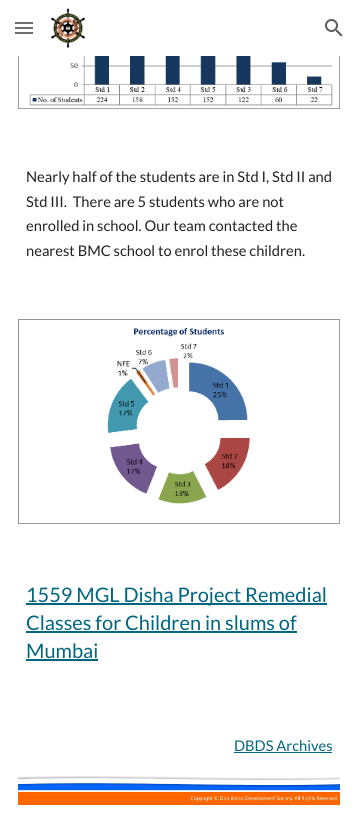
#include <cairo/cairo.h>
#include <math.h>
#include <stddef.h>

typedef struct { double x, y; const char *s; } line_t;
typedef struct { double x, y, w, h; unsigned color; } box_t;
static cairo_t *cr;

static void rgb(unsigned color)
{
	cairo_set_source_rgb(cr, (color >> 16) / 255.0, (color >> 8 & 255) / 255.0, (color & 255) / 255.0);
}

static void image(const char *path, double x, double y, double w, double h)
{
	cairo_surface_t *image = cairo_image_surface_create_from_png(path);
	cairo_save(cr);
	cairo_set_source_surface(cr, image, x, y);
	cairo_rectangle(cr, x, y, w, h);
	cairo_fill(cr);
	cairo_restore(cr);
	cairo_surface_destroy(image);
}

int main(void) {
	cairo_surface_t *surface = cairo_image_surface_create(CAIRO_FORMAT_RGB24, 358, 829);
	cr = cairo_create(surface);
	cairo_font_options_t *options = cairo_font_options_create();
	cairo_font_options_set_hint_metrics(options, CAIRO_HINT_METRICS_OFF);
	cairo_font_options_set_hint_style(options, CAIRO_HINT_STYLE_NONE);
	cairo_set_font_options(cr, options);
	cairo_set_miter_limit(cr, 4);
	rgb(0xffffff);
	cairo_paint(cr);
	rgb(0x5c5c5c);
	cairo_rectangle(cr, 15, 22, 18, 2);
	cairo_fill(cr);
	cairo_rectangle(cr, 15, 27, 18, 2);
	cairo_fill(cr);
	cairo_rectangle(cr, 15, 32, 18, 2);
	cairo_fill(cr);
	cairo_set_source_rgba(cr, 1, 1, 1, 0.12);
	cairo_rectangle(cr, 15, 22, 18, 12);
	cairo_fill(cr);
	image("img/1.png", 50, 8, 36, 40);
	image("img/2.png", 325, 19, 18, 18);
	image("img/3.png", 18, 56, 322, 53);
	image("img/4.png", 18, 319, 322, 205);
	{
		static const box_t items[] = {
			{26, 603, 301, 2, 0x006580},
			{26, 631, 271, 2, 0x006580},
			{26, 659, 72, 2, 0x006580},
			{234, 752, 98, 1, 0x006580},
		};
		for (size_t i = 0; i < sizeof items / sizeof *items; i++) {
			rgb(items[i].color);
			cairo_rectangle(cr, items[i].x, items[i].y, items[i].w, items[i].h);
			cairo_fill(cr);
		}
	}
	image("img/5.png", 18, 776, 322, 29);
	cairo_select_font_face(cr, "Lato", CAIRO_FONT_SLANT_NORMAL, CAIRO_FONT_WEIGHT_NORMAL);
	cairo_set_font_size(cr, 14.7);
	rgb(0x212121);
	{
		static const line_t items[] = {
			{26, 182, "Nearly half of the students are in Std I, Std II and"},
			{26, 207, "Std III.  There are 5 students who are not"},
			{26, 231, "enrolled in school. Our team contacted the"},
			{26, 256, "nearest BMC school to enrol these children."},
		};
		for (size_t i = 0; i < sizeof items / sizeof *items; i++) {
			cairo_move_to(cr, items[i].x, items[i].y);
			cairo_show_text(cr, items[i].s);
		}
	}
	cairo_set_font_size(cr, 20);
	rgb(0x006580);
	{
		static const line_t items[] = {
			{26, 602, "1559 MGL Disha Project Remedial"},
			{26, 630, "Classes for Children in slums of"},
			{26, 658, "Mumbai"},
		};
		for (size_t i = 0; i < sizeof items / sizeof *items; i++) {
			cairo_move_to(cr, items[i].x, items[i].y);
			cairo_show_text(cr, items[i].s);
		}
	}
	cairo_set_font_size(cr, 14.7);
	cairo_move_to(cr, 234, 751);
	cairo_show_text(cr, "DBDS Archives");
	cairo_surface_write_to_png(surface, "page.png");
	cairo_font_options_destroy(options);
	cairo_destroy(cr);
	cairo_surface_destroy(surface);
	return 0;
}
